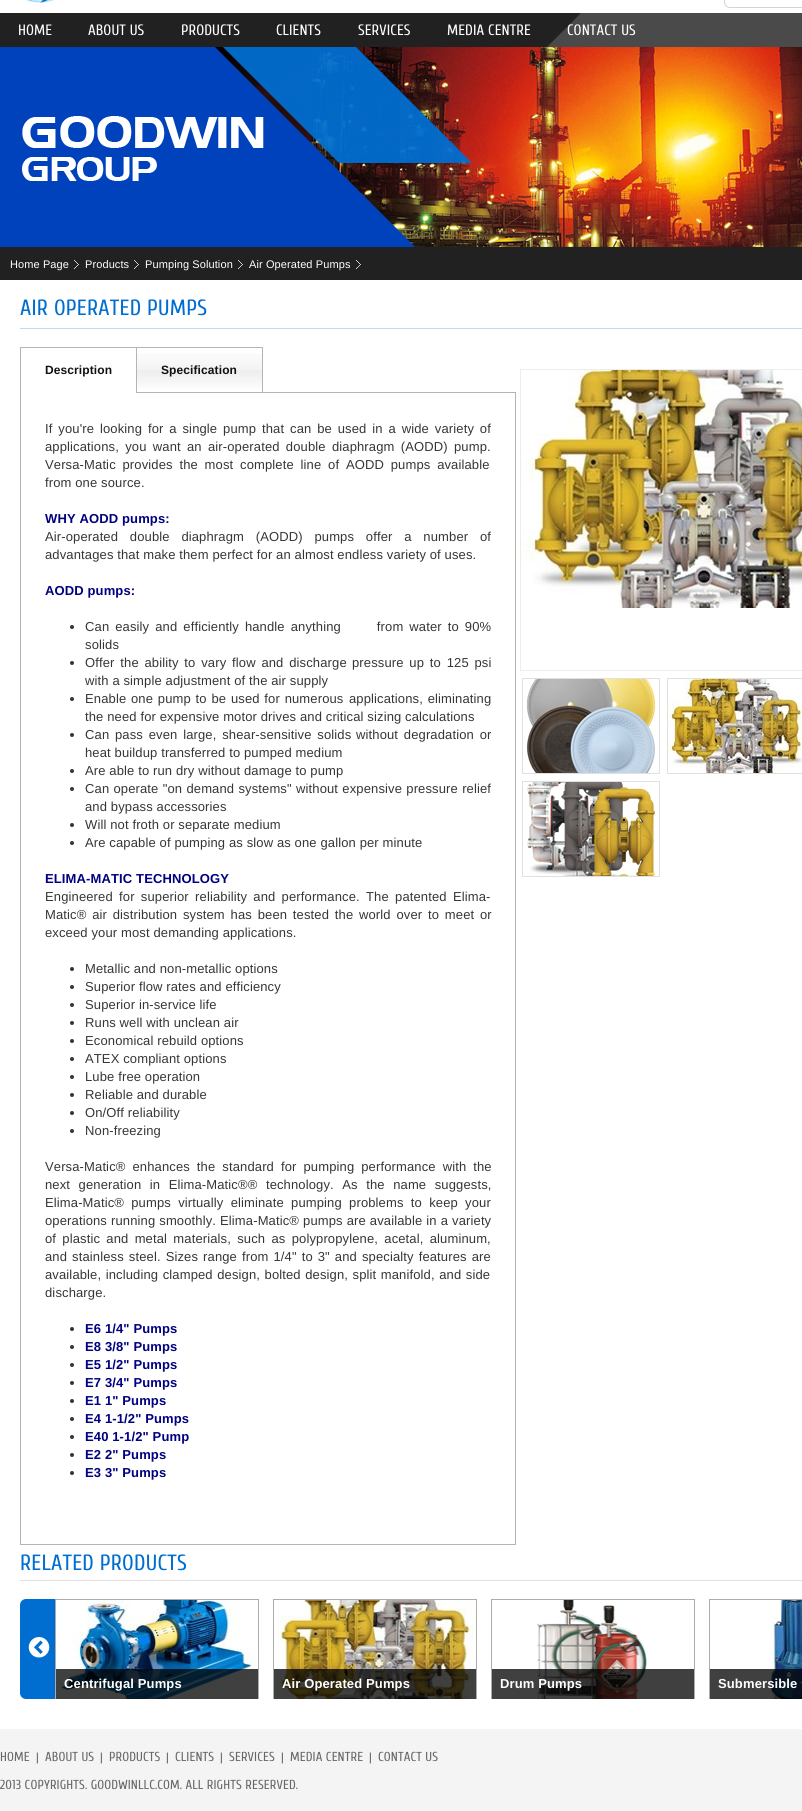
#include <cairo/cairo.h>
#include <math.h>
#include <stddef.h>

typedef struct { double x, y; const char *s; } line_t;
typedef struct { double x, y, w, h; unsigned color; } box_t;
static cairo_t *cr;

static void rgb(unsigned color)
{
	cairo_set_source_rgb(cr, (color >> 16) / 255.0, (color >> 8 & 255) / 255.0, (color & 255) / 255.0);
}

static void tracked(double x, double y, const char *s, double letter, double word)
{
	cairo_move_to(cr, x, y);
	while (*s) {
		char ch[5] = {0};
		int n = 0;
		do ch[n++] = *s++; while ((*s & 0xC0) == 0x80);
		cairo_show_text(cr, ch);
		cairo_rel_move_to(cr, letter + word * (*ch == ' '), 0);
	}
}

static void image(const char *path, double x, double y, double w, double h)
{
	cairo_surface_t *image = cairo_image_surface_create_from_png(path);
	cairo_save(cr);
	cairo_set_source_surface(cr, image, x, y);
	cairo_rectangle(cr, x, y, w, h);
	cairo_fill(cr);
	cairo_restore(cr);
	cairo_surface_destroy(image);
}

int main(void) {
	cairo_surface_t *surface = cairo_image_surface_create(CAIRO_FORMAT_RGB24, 802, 1811);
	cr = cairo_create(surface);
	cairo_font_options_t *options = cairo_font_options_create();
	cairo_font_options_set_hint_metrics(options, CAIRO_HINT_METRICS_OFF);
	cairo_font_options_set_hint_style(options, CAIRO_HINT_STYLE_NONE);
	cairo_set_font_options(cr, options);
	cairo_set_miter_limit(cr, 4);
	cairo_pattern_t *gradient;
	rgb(0xffffff);
	cairo_paint(cr);
	image("img/1.png", 0, 13, 547, 34);
	image("img/2.png", 26, 0, 28, 3);
	cairo_new_path(cr);
	cairo_move_to(cr, 730, -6.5);
	cairo_line_to(cr, 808.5, -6.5);
	cairo_line_to(cr, 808.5, 7.5);
	cairo_line_to(cr, 730, 7.5);
	cairo_curve_to(cr, 727, 7.5, 724.5, 5, 724.5, 2);
	cairo_line_to(cr, 724.5, -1);
	cairo_curve_to(cr, 724.5, -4, 727, -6.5, 730, -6.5);
	cairo_close_path(cr);
	rgb(0xd3d3d3);
	cairo_set_line_width(cr, 1);
	cairo_stroke(cr);
	image("img/3.png", 547, 13, 255, 34);
	image("img/4.png", 0, 47, 802, 200);
	rgb(0xf4f4f4);
	cairo_rectangle(cr, 0, 1729, 802, 82);
	cairo_fill(cr);
	rgb(0x212121);
	cairo_rectangle(cr, 0, 247, 802, 33);
	cairo_fill(cr);
	image("img/5.png", 74, 260, 5, 9);
	image("img/5.png", 134, 260, 5, 9);
	image("img/5.png", 238, 260, 5, 9);
	image("img/5.png", 356, 260, 5, 9);
	rgb(0xbedbf4);
	cairo_rectangle(cr, 20, 328, 782, 1);
	cairo_fill(cr);
	cairo_rectangle(cr, 20.5, 392.5, 495, 1152);
	rgb(0xb4b4b4);
	cairo_stroke(cr);
	{
		static const box_t items[] = {
			{21, 392, 115, 1, 0xffffff},
			{136, 347, 127, 1, 0xb4b4b4},
			{136, 347, 1, 45, 0xb4b4b4},
			{20, 347, 117, 1, 0xb4b4b4},
			{20, 347, 1, 46, 0xb4b4b4},
		};
		for (size_t i = 0; i < sizeof items / sizeof *items; i++) {
			rgb(items[i].color);
			cairo_rectangle(cr, items[i].x, items[i].y, items[i].w, items[i].h);
			cairo_fill(cr);
		}
	}
	gradient = cairo_pattern_create_linear(200, 348, 200, 392);
	cairo_pattern_add_color_stop_rgba(gradient, 0, 1, 1, 1, 1);
	cairo_pattern_add_color_stop_rgba(gradient, 0.5, 0.953, 0.953, 0.953, 1);
	cairo_pattern_add_color_stop_rgba(gradient, 0.51, 0.929, 0.929, 0.929, 1);
	cairo_pattern_add_color_stop_rgba(gradient, 1, 1, 1, 1, 1);
	cairo_set_source(cr, gradient);
	cairo_pattern_destroy(gradient);
	cairo_rectangle(cr, 137, 353, 125, 36);
	cairo_fill(cr);
	rgb(0xb4b4b4);
	cairo_rectangle(cr, 262, 347, 1, 45);
	cairo_fill(cr);
	rgb(0x333333);
	cairo_arc(cr, 72, 627, 2, 0, 2 * M_PI);
	cairo_fill(cr);
	rgb(0x363636);
	cairo_arc(cr, 72, 663, 2, 0, 2 * M_PI);
	cairo_fill(cr);
	cairo_arc(cr, 72, 699, 2, 0, 2 * M_PI);
	cairo_fill(cr);
	cairo_arc(cr, 72, 735, 2, 0, 2 * M_PI);
	cairo_fill(cr);
	cairo_arc(cr, 72, 771, 2, 0, 2 * M_PI);
	cairo_fill(cr);
	cairo_arc(cr, 72, 789, 2, 0, 2 * M_PI);
	cairo_fill(cr);
	cairo_arc(cr, 72, 825, 2, 0, 2 * M_PI);
	cairo_fill(cr);
	cairo_arc(cr, 72, 843, 2, 0, 2 * M_PI);
	cairo_fill(cr);
	rgb(0x333333);
	cairo_arc(cr, 72, 969, 2, 0, 2 * M_PI);
	cairo_fill(cr);
	rgb(0x363636);
	cairo_arc(cr, 72, 987, 2, 0, 2 * M_PI);
	cairo_fill(cr);
	cairo_arc(cr, 72, 1005, 2, 0, 2 * M_PI);
	cairo_fill(cr);
	cairo_arc(cr, 72, 1023, 2, 0, 2 * M_PI);
	cairo_fill(cr);
	cairo_arc(cr, 72, 1041, 2, 0, 2 * M_PI);
	cairo_fill(cr);
	cairo_arc(cr, 72, 1059, 2, 0, 2 * M_PI);
	cairo_fill(cr);
	cairo_arc(cr, 72, 1077, 2, 0, 2 * M_PI);
	cairo_fill(cr);
	cairo_arc(cr, 72, 1095, 2, 0, 2 * M_PI);
	cairo_fill(cr);
	cairo_arc(cr, 72, 1113, 2, 0, 2 * M_PI);
	cairo_fill(cr);
	cairo_arc(cr, 72, 1131, 2, 0, 2 * M_PI);
	cairo_fill(cr);
	rgb(0x333333);
	cairo_arc(cr, 72, 1329, 2, 0, 2 * M_PI);
	cairo_fill(cr);
	rgb(0x363636);
	cairo_arc(cr, 72, 1347, 2, 0, 2 * M_PI);
	cairo_fill(cr);
	cairo_arc(cr, 72, 1365, 2, 0, 2 * M_PI);
	cairo_fill(cr);
	cairo_arc(cr, 72, 1383, 2, 0, 2 * M_PI);
	cairo_fill(cr);
	cairo_arc(cr, 72, 1401, 2, 0, 2 * M_PI);
	cairo_fill(cr);
	cairo_arc(cr, 72, 1419, 2, 0, 2 * M_PI);
	cairo_fill(cr);
	cairo_arc(cr, 72, 1437, 2, 0, 2 * M_PI);
	cairo_fill(cr);
	cairo_arc(cr, 72, 1455, 2, 0, 2 * M_PI);
	cairo_fill(cr);
	cairo_arc(cr, 72, 1473, 2, 0, 2 * M_PI);
	cairo_fill(cr);
	cairo_rectangle(cr, 520.5, 369.5, 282, 301);
	rgb(0xededed);
	cairo_stroke(cr);
	image("img/6.png", 521, 370, 281, 238);
	cairo_rectangle(cr, 522.5, 678.5, 137, 95);
	rgb(0xe0e0e0);
	cairo_stroke(cr);
	image("img/7.png", 526, 679, 130, 94);
	cairo_rectangle(cr, 667.5, 678.5, 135, 95);
	cairo_stroke(cr);
	image("img/8.png", 668, 679, 134, 94);
	cairo_rectangle(cr, 522.5, 781.5, 137, 95);
	cairo_stroke(cr);
	image("img/9.png", 527, 782, 128, 94);
	rgb(0xdfdfdf);
	cairo_rectangle(cr, 20, 1580, 782, 1);
	cairo_fill(cr);
	image("img/10.png", 20, 1599, 35, 100);
	cairo_save(cr);
	cairo_rectangle(cr, 55, 1599, 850, 100);
	cairo_clip(cr);
	cairo_rectangle(cr, 55.5, 1599.5, 203, 101);
	rgb(0xacacac);
	cairo_stroke(cr);
	cairo_restore(cr);
	image("img/11.png", 56, 1600, 201, 99);
	cairo_set_source_rgba(cr, 0, 0, 0, 0.75);
	cairo_rectangle(cr, 56, 1669, 202, 30);
	cairo_fill(cr);
	cairo_save(cr);
	cairo_rectangle(cr, 55, 1599, 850, 100);
	cairo_clip(cr);
	cairo_rectangle(cr, 273.5, 1599.5, 203, 101);
	rgb(0xacacac);
	cairo_stroke(cr);
	cairo_restore(cr);
	image("img/12.png", 274, 1600, 202, 99);
	cairo_rectangle(cr, 274, 1669, 202, 30);
	cairo_fill(cr);
	cairo_save(cr);
	cairo_rectangle(cr, 55, 1599, 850, 100);
	cairo_clip(cr);
	cairo_rectangle(cr, 491.5, 1599.5, 203, 101);
	rgb(0xacacac);
	cairo_stroke(cr);
	cairo_restore(cr);
	image("img/13.png", 537, 1600, 110, 99);
	cairo_rectangle(cr, 492, 1669, 202, 30);
	cairo_fill(cr);
	cairo_save(cr);
	cairo_rectangle(cr, 55, 1599, 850, 100);
	cairo_clip(cr);
	cairo_rectangle(cr, 709.5, 1599.5, 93, 101);
	rgb(0xacacac);
	cairo_stroke(cr);
	cairo_restore(cr);
	image("img/14.png", 765, 1600, 37, 99);
	cairo_rectangle(cr, 710, 1669, 92, 30);
	cairo_fill(cr);
	cairo_select_font_face(cr, "Cuprum", CAIRO_FONT_SLANT_NORMAL, CAIRO_FONT_WEIGHT_NORMAL);
	cairo_set_font_size(cr, 15);
	rgb(0xffffff);
	{
		static const line_t items[] = {
			{18, 35, "HOME"},
			{88, 35, "ABOUT US"},
			{181, 35, "PRODUCTS"},
			{276, 35, "CLIENTS"},
			{358, 35, "SERVICES"},
			{447, 35, "MEDIA CENTRE"},
			{567, 35, "CONTACT US"},
		};
		for (size_t i = 0; i < sizeof items / sizeof *items; i++) {
			tracked(items[i].x, items[i].y, items[i].s, 0.1, 0);
		}
	}
	cairo_select_font_face(cr, "Liberation Sans", CAIRO_FONT_SLANT_NORMAL, CAIRO_FONT_WEIGHT_NORMAL);
	cairo_set_font_size(cr, 11);
	{
		static const line_t items[] = {
			{10, 268, "Home Page"},
			{85, 268, "Products"},
			{145, 268, "Pumping Solution"},
			{249, 268, "Air Operated Pumps"},
		};
		for (size_t i = 0; i < sizeof items / sizeof *items; i++) {
			tracked(items[i].x, items[i].y, items[i].s, 0.1, 0);
		}
	}
	cairo_select_font_face(cr, "Cuprum", CAIRO_FONT_SLANT_NORMAL, CAIRO_FONT_WEIGHT_NORMAL);
	cairo_set_font_size(cr, 22);
	rgb(0x006ed1);
	tracked(20, 315, "AIR OPERATED PUMPS", 0.25, 0);
	cairo_select_font_face(cr, "Liberation Sans", CAIRO_FONT_SLANT_NORMAL, CAIRO_FONT_WEIGHT_BOLD);
	cairo_set_font_size(cr, 12);
	rgb(0x111111);
	tracked(45, 374, "Description", 0.1, 0);
	tracked(161, 374, "Specification", 0.1, 0);
	cairo_select_font_face(cr, "Liberation Sans", CAIRO_FONT_SLANT_NORMAL, CAIRO_FONT_WEIGHT_NORMAL);
	cairo_set_font_size(cr, 13);
	rgb(0x363636);
	tracked(45, 433, "If you're looking for a single pump that can be used in a wide variety of", 0.13, 2.1);
	tracked(45, 451, "applications, you want an air-operated double diaphragm (AODD) pump.", 0.13, 2.5);
	tracked(45, 469, "Versa-Matic provides the most complete line of AODD pumps available", 0.13, 3);
	tracked(45, 487, "from one source", 0.13, 0);
	tracked(141, 487, ".", 0.13, 0);
	cairo_select_font_face(cr, "Liberation Sans", CAIRO_FONT_SLANT_NORMAL, CAIRO_FONT_WEIGHT_BOLD);
	rgb(0x000080);
	tracked(45, 523, "WHY AODD pumps:", 0.13, 0);
	cairo_select_font_face(cr, "Liberation Sans", CAIRO_FONT_SLANT_NORMAL, CAIRO_FONT_WEIGHT_NORMAL);
	rgb(0x363636);
	tracked(45, 541, "Air-operated double diaphragm (AODD) pumps offer a number of", 0.13, 8);
	tracked(45, 559, "advantages that make them perfect for an almost endless variety of uses.", 0.13, 0);
	cairo_select_font_face(cr, "Liberation Sans", CAIRO_FONT_SLANT_NORMAL, CAIRO_FONT_WEIGHT_BOLD);
	rgb(0x000080);
	tracked(45, 595, "AODD pumps:", 0.13, 0);
	cairo_select_font_face(cr, "Liberation Sans", CAIRO_FONT_SLANT_NORMAL, CAIRO_FONT_WEIGHT_NORMAL);
	rgb(0x363636);
	tracked(85, 631, "Can easily and efficiently handle anything      from water to 90%", 0.13, 2.25);
	tracked(85, 649, "solids", 0.13, 0);
	tracked(85, 667, "Offer the ability to vary flow and discharge", 0.13, 2);
	tracked(352, 667, "pressure up to 125 psi", 0.13, 2);
	tracked(85, 685, "with a simple adjustment of the air supply", 0.13, 0);
	tracked(85, 703, "Enable one pump to be used for numerous", 0.13, 1);
	tracked(349, 703, "applications, eliminating", 0.13, 1);
	tracked(85, 721, "the need for expensive motor drives and critical sizing calculations", 0.13, 0);
	tracked(85, 739, "Can pass even large, shear-sensitive solids", 0.13, 2);
	tracked(356, 739, "without degradation or", 0.13, 2);
	tracked(85, 757, "heat buildup transferred to pumped medium", 0.13, 0);
	tracked(85, 775, "Are able to run dry without damage to pump", 0.13, 0);
	tracked(85, 793, "Can operate \"on demand systems\"", 0.13, 0.5);
	tracked(296, 793, "without expensive pressure relief", 0.13, 0.5);
	{
		static const line_t items[] = {
			{85, 811, "and bypass accessories"},
			{85, 829, "Will not froth or separate medium"},
			{85, 847, "Are capable of pumping as slow as one gallon per minute"},
		};
		for (size_t i = 0; i < sizeof items / sizeof *items; i++) {
			tracked(items[i].x, items[i].y, items[i].s, 0.13, 0);
		}
	}
	cairo_select_font_face(cr, "Liberation Sans", CAIRO_FONT_SLANT_NORMAL, CAIRO_FONT_WEIGHT_BOLD);
	rgb(0x000080);
	tracked(45, 883, "ELIMA-MATIC TECHNOLOGY", 0.13, 0);
	cairo_select_font_face(cr, "Liberation Sans", CAIRO_FONT_SLANT_NORMAL, CAIRO_FONT_WEIGHT_NORMAL);
	rgb(0x363636);
	tracked(45, 901, "Engineered for superior reliability and performance. The patented Elima-", 0.13, 2.5);
	tracked(45, 919, "Matic® air distribution system has been tested the world over to meet or", 0.13, 2);
	{
		static const line_t items[] = {
			{45, 937, "exceed your most demanding applications."},
			{85, 973, "Metallic and non-metallic options"},
			{85, 991, "Superior flow rates and efficiency"},
			{85, 1009, "Superior in-service life"},
			{85, 1027, "Runs well with unclean air"},
			{85, 1045, "Economical rebuild options"},
			{85, 1063, "ATEX compliant options"},
			{85, 1081, "Lube free operation"},
			{85, 1099, "Reliable and durable"},
			{85, 1117, "On/Off reliability"},
			{85, 1135, "Non-freezing"},
		};
		for (size_t i = 0; i < sizeof items / sizeof *items; i++) {
			tracked(items[i].x, items[i].y, items[i].s, 0.13, 0);
		}
	}
	tracked(45, 1171, "Versa-Matic® enhances the standard for pumping performance with the", 0.13, 3.25);
	tracked(45, 1189, "next generation in Elima-Matic®® technology. As the name suggests,", 0.13, 4.75);
	tracked(45, 1207, "Elima-Matic® pumps virtually eliminate pumping problems to keep your", 0.13, 3.5);
	tracked(45, 1225, "operations running smoothly. Elima-Matic® pumps are available in a variety", 0.13, 0.25);
	tracked(45, 1243, "of plastic and metal materials, such as polypropylene, acetal, aluminum,", 0.13, 2.5);
	tracked(45, 1261, "and stainless steel. Sizes range from 1/4\" to 3\" and specialty features are", 0.13, 1.25);
	tracked(45, 1279, "available, including clamped design, bolted design, split manifold, and side", 0.13, 0.75);
	tracked(45, 1297, "discharge.", 0.13, 0);
	cairo_select_font_face(cr, "Liberation Sans", CAIRO_FONT_SLANT_NORMAL, CAIRO_FONT_WEIGHT_BOLD);
	rgb(0x000080);
	{
		static const line_t items[] = {
			{85, 1333, "E6 1/4\" Pumps"},
			{85, 1351, "E8 3/8\" Pumps"},
			{85, 1369, "E5 1/2\" Pumps"},
			{85, 1387, "E7 3/4\" Pumps"},
			{85, 1405, "E1 1\" Pumps"},
			{85, 1423, "E4 1-1/2\" Pumps"},
			{85, 1441, "E40 1-1/2\" Pump"},
			{85, 1459, "E2 2\" Pumps"},
			{85, 1477, "E3 3\" Pumps"},
		};
		for (size_t i = 0; i < sizeof items / sizeof *items; i++) {
			tracked(items[i].x, items[i].y, items[i].s, 0.13, 0);
		}
	}
	cairo_select_font_face(cr, "Cuprum", CAIRO_FONT_SLANT_NORMAL, CAIRO_FONT_WEIGHT_NORMAL);
	cairo_set_font_size(cr, 22);
	rgb(0x006ed1);
	tracked(20, 1570, "RELATED PRODUCTS", 0.25, 0);
	cairo_select_font_face(cr, "Liberation Sans", CAIRO_FONT_SLANT_NORMAL, CAIRO_FONT_WEIGHT_BOLD);
	cairo_set_font_size(cr, 13);
	rgb(0xffffff);
	{
		static const line_t items[] = {
			{64, 1688, "Centrifugal Pumps"},
			{282, 1688, "Air Operated Pumps"},
			{500, 1688, "Drum Pumps"},
			{718, 1688, "Submersible"},
		};
		for (size_t i = 0; i < sizeof items / sizeof *items; i++) {
			tracked(items[i].x, items[i].y, items[i].s, 0.13, 0);
		}
	}
	cairo_select_font_face(cr, "Cuprum", CAIRO_FONT_SLANT_NORMAL, CAIRO_FONT_WEIGHT_NORMAL);
	rgb(0x676767);
	tracked(0, 1761, "HOME", 0.13, 0);
	cairo_set_font_size(cr, 12);
	tracked(36, 1761, "|", 0.1, 0);
	cairo_set_font_size(cr, 13);
	tracked(45, 1761, "ABOUT US", 0.13, 0);
	cairo_set_font_size(cr, 12);
	tracked(100, 1761, "|", 0.1, 0);
	cairo_set_font_size(cr, 13);
	tracked(109, 1761, "PRODUCTS", 0.13, 0);
	cairo_set_font_size(cr, 12);
	tracked(166, 1761, "|", 0.1, 0);
	cairo_set_font_size(cr, 13);
	tracked(175, 1761, "CLIENTS", 0.13, 0);
	cairo_set_font_size(cr, 12);
	tracked(220, 1761, "|", 0.1, 0);
	cairo_set_font_size(cr, 13);
	tracked(229, 1761, "SERVICES", 0.13, 0);
	cairo_set_font_size(cr, 12);
	tracked(281, 1761, "|", 0.1, 0);
	cairo_set_font_size(cr, 13);
	tracked(290, 1761, "MEDIA CENTRE", 0.13, 0);
	cairo_set_font_size(cr, 12);
	tracked(369, 1761, "|", 0.1, 0);
	cairo_set_font_size(cr, 13);
	tracked(378, 1761, "CONTACT US", 0.13, 0);
	tracked(0, 1789, "2013 COPYRIGHTS. GOODWINLLC.COM. ALL RIGHTS RESERVED.", 0.13, 0);
	cairo_surface_write_to_png(surface, "page.png");
	cairo_font_options_destroy(options);
	cairo_destroy(cr);
	cairo_surface_destroy(surface);
	return 0;
}
